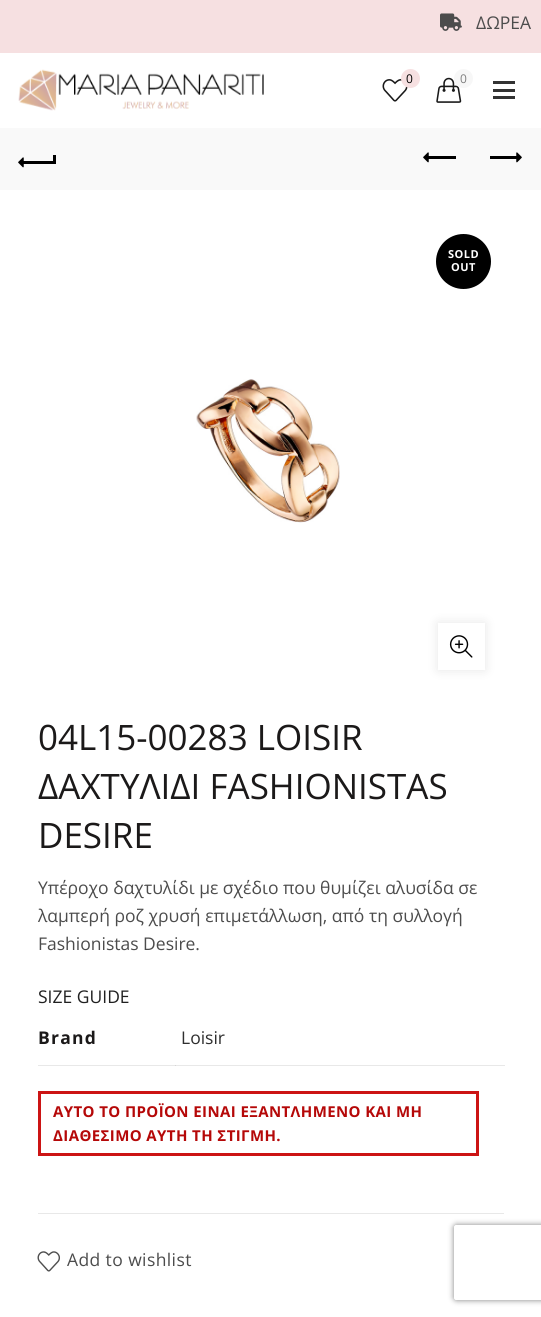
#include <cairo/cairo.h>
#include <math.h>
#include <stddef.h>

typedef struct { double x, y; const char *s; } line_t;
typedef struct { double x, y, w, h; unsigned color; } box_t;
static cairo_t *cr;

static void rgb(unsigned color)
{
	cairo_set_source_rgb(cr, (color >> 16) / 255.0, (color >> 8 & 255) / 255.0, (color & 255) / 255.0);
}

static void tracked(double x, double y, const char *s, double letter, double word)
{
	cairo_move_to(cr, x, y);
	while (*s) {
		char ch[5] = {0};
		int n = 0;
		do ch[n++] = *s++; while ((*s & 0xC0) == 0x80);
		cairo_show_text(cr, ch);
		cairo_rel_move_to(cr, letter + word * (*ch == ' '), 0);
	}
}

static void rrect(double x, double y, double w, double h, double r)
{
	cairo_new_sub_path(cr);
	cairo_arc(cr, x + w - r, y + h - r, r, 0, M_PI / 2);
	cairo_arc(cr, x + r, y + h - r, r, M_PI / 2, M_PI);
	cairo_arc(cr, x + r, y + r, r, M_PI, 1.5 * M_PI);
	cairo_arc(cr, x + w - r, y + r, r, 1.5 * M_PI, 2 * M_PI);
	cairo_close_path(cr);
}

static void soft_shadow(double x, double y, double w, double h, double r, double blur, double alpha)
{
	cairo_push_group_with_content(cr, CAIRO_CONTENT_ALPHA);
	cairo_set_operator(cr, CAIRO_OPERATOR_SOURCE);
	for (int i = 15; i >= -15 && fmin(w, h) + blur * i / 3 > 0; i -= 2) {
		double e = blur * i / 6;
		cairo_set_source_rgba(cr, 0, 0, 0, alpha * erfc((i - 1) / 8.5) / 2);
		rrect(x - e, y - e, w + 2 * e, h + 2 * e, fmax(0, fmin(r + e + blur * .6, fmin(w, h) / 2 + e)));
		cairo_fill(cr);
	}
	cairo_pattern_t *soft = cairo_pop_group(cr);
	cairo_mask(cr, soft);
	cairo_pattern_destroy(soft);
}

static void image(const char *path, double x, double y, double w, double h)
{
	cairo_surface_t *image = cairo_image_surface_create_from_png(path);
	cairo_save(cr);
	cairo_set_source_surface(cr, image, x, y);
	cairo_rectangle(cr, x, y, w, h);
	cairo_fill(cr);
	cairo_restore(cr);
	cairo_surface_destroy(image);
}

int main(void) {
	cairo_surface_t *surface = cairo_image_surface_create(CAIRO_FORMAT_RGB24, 541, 1317);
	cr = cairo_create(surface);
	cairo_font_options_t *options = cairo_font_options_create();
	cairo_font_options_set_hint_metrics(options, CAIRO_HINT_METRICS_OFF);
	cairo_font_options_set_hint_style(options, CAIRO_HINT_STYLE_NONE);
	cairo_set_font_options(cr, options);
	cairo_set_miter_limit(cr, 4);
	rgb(0xffffff);
	cairo_paint(cr);
	rgb(0xe8e8e8);
	cairo_rectangle(cr, 38, 1065, 467, 1);
	cairo_fill(cr);
	rgb(0xf6e0e1);
	cairo_rectangle(cr, 0, 0, 541, 53);
	cairo_fill(cr);
	image("img/1.png", 440, 13, 22, 18);
	image("img/2.png", 18, 69, 246, 42);
	image("img/3.png", 382, 79, 26, 23);
	cairo_arc(cr, 410.5, 78.5, 9.5, 0, 2 * M_PI);
	cairo_fill(cr);
	image("img/4.png", 436, 77, 26, 26);
	rgb(0xf7f7f7);
	cairo_arc(cr, 463.5, 78.5, 9.5, 0, 2 * M_PI);
	cairo_fill(cr);
	{
		static const box_t items[] = {
			{493, 89, 22, 3, 0x333333},
			{493, 81, 22, 3, 0x333333},
			{493, 96, 22, 3, 0x333333},
			{0, 128, 541, 62, 0xf9f9f9},
			{23, 161, 31, 3, 0x000000},
		};
		for (size_t i = 0; i < sizeof items / sizeof *items; i++) {
			rgb(items[i].color);
			cairo_rectangle(cr, items[i].x, items[i].y, items[i].w, items[i].h);
			cairo_fill(cr);
		}
	}
	image("img/5.png", 18, 157, 6, 11);
	cairo_rectangle(cr, 53, 155, 3, 9);
	cairo_fill(cr);
	cairo_rectangle(cr, 428, 156, 28, 3);
	cairo_fill(cr);
	image("img/5.png", 423, 152, 6, 11);
	cairo_rectangle(cr, 490, 156, 29, 3);
	cairo_fill(cr);
	image("img/6.png", 516, 152, 6, 11);
	cairo_arc(cr, 463.5, 261.5, 27.5, 0, 2 * M_PI);
	cairo_fill(cr);
	image("img/7.png", 196, 379, 144, 144);
	cairo_save(cr);
	cairo_set_fill_rule(cr, CAIRO_FILL_RULE_EVEN_ODD);
	cairo_new_path(cr);
	cairo_move_to(cr, 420, 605);
	cairo_line_to(cr, 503, 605);
	cairo_line_to(cr, 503, 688);
	cairo_line_to(cr, 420, 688);
	cairo_close_path(cr);
	cairo_move_to(cr, 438, 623);
	cairo_line_to(cr, 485, 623);
	cairo_line_to(cr, 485, 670);
	cairo_line_to(cr, 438, 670);
	cairo_close_path(cr);
	cairo_clip(cr);
	rgb(0x000000);
	soft_shadow(438, 623, 47, 47, 0, 5.5, 0.1);
	cairo_restore(cr);
	image("img/8.png", 449, 635, 24, 23);
	rgb(0xd5d5d5);
	cairo_rectangle(cr, 175, 1065, 1, 1);
	cairo_fill(cr);
	rgb(0xe8e8e8);
	cairo_rectangle(cr, 38, 1213, 466, 1);
	cairo_fill(cr);
	cairo_rectangle(cr, 39.5, 1092.5, 438, 62);
	rgb(0xcc1414);
	cairo_set_line_width(cr, 3);
	cairo_stroke(cr);
	image("img/9.png", 37, 1251, 23, 21);
	cairo_save(cr);
	cairo_set_fill_rule(cr, CAIRO_FILL_RULE_EVEN_ODD);
	cairo_new_path(cr);
	cairo_move_to(cr, 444, 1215);
	cairo_line_to(cr, 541, 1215);
	cairo_line_to(cr, 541, 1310);
	cairo_line_to(cr, 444, 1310);
	cairo_close_path(cr);
	cairo_move_to(cr, 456.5, 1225);
	cairo_line_to(cr, 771.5, 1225);
	cairo_curve_to(cr, 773, 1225, 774, 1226, 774, 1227.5);
	cairo_line_to(cr, 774, 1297.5);
	cairo_curve_to(cr, 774, 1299, 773, 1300, 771.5, 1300);
	cairo_line_to(cr, 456.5, 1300);
	cairo_curve_to(cr, 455, 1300, 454, 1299, 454, 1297.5);
	cairo_line_to(cr, 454, 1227.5);
	cairo_curve_to(cr, 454, 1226, 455, 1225, 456.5, 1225);
	cairo_close_path(cr);
	cairo_clip(cr);
	rgb(0x808080);
	soft_shadow(454, 1225, 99, 75, 2.5, 3, 1);
	cairo_restore(cr);
	cairo_select_font_face(cr, "Open Sans", CAIRO_FONT_SLANT_NORMAL, CAIRO_FONT_WEIGHT_NORMAL);
	cairo_set_font_size(cr, 17.5);
	rgb(0x4c4c4c);
	cairo_move_to(cr, 476, 29);
	cairo_show_text(cr, "ΔΩΡΕΑ");
	cairo_set_font_size(cr, 12);
	rgb(0x000000);
	cairo_move_to(cr, 406, 83);
	cairo_show_text(cr, "0");
	rgb(0x7e7e7e);
	cairo_move_to(cr, 460, 83);
	cairo_show_text(cr, "0");
	cairo_select_font_face(cr, "Open Sans", CAIRO_FONT_SLANT_NORMAL, CAIRO_FONT_WEIGHT_BOLD);
	cairo_set_font_size(cr, 11);
	rgb(0xffffff);
	tracked(448, 258, "SOLD", 0.5, 0);
	tracked(451, 271, "OUT", 0.5, 0);
	cairo_select_font_face(cr, "Open Sans", CAIRO_FONT_SLANT_NORMAL, CAIRO_FONT_WEIGHT_NORMAL);
	cairo_set_font_size(cr, 35);
	rgb(0x1b1919);
	{
		static const line_t items[] = {
			{38, 750, "04L15-00283 LOISIR"},
			{38, 799, "ΔΑΧΤΥΛΙΔΙ FASHIONISTAS"},
			{38, 848, "DESIRE"},
		};
		for (size_t i = 0; i < sizeof items / sizeof *items; i++) {
			cairo_move_to(cr, items[i].x, items[i].y);
			cairo_show_text(cr, items[i].s);
		}
	}
	cairo_set_font_size(cr, 17.5);
	rgb(0x4c4c4c);
	{
		static const line_t items[] = {
			{38, 894, "Υπέροχο δαχτυλίδι με σχέδιο που θυμίζει αλυσίδα σε"},
			{38, 922, "λαμπερή ροζ χρυσή επιμετάλλωση, από τη συλλογή"},
			{38, 950, "Fashionistas Desire."},
		};
		for (size_t i = 0; i < sizeof items / sizeof *items; i++) {
			cairo_move_to(cr, items[i].x, items[i].y);
			cairo_show_text(cr, items[i].s);
		}
	}
	rgb(0x202020);
	cairo_move_to(cr, 38, 1003);
	cairo_show_text(cr, "SIZE GUIDE");
	cairo_select_font_face(cr, "Open Sans", CAIRO_FONT_SLANT_NORMAL, CAIRO_FONT_WEIGHT_BOLD);
	rgb(0x1b1919);
	tracked(38, 1044, "Brand", 1.25, 0);
	cairo_select_font_face(cr, "Open Sans", CAIRO_FONT_SLANT_NORMAL, CAIRO_FONT_WEIGHT_NORMAL);
	rgb(0x2f2f2f);
	cairo_move_to(cr, 181, 1044);
	cairo_show_text(cr, "Loisir");
	cairo_select_font_face(cr, "Open Sans", CAIRO_FONT_SLANT_NORMAL, CAIRO_FONT_WEIGHT_BOLD);
	cairo_set_font_size(cr, 15);
	rgb(0xb50808);
	tracked(53, 1117, "ΑΥΤΟ ΤΟ ΠΡΟΪΟΝ ΕΙΝΑΙ ΕΞΑΝΤΛΗΜΕΝΟ ΚΑΙ ΜΗ", 0.4, 0);
	tracked(53, 1141, "ΔΙΑΘΕΣΙΜΟ ΑΥΤΗ ΤΗ ΣΤΙΓΜΗ.", 0.4, 0);
	cairo_select_font_face(cr, "Open Sans", CAIRO_FONT_SLANT_NORMAL, CAIRO_FONT_WEIGHT_NORMAL);
	cairo_set_font_size(cr, 17.5);
	rgb(0x4c4c4c);
	tracked(67, 1266, "Add to wishlist", 0.4, 0);
	cairo_surface_write_to_png(surface, "page.png");
	cairo_font_options_destroy(options);
	cairo_destroy(cr);
	cairo_surface_destroy(surface);
	return 0;
}
